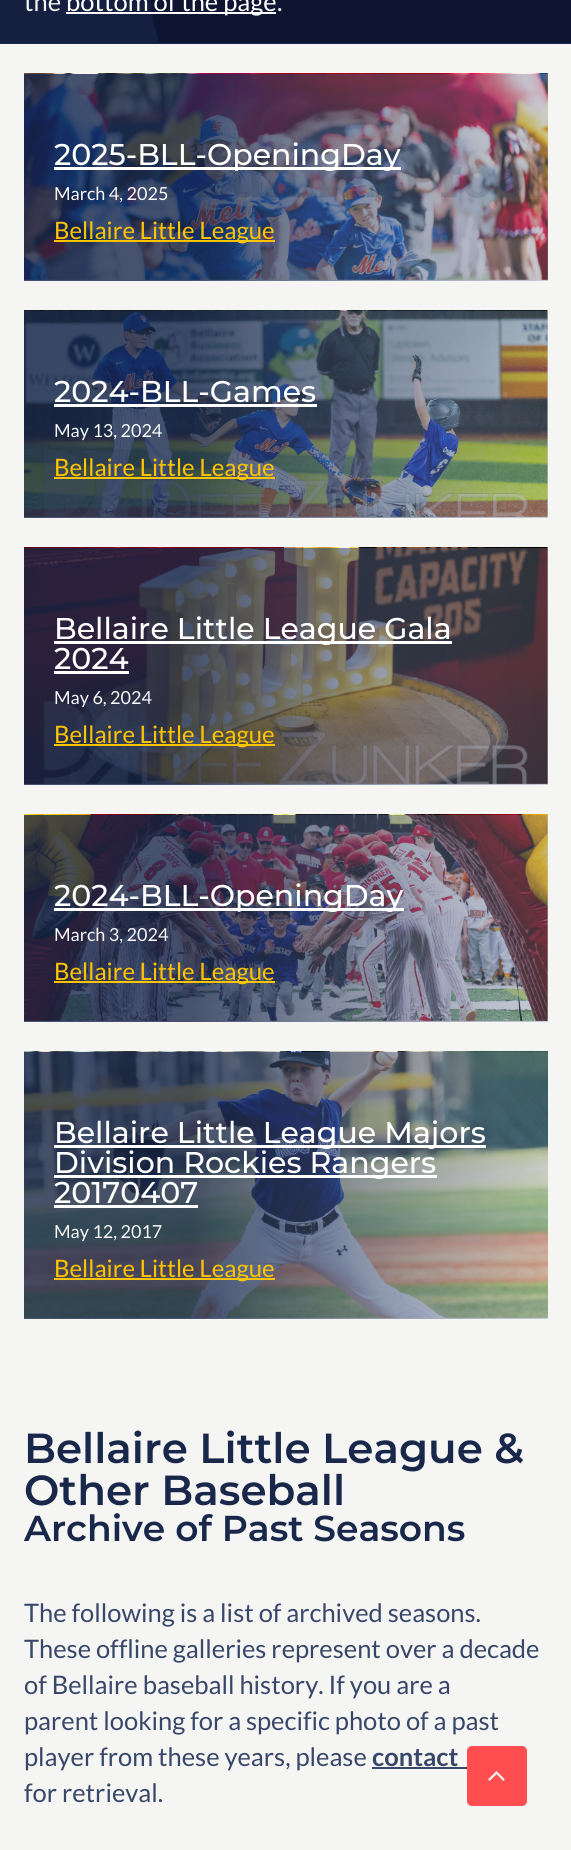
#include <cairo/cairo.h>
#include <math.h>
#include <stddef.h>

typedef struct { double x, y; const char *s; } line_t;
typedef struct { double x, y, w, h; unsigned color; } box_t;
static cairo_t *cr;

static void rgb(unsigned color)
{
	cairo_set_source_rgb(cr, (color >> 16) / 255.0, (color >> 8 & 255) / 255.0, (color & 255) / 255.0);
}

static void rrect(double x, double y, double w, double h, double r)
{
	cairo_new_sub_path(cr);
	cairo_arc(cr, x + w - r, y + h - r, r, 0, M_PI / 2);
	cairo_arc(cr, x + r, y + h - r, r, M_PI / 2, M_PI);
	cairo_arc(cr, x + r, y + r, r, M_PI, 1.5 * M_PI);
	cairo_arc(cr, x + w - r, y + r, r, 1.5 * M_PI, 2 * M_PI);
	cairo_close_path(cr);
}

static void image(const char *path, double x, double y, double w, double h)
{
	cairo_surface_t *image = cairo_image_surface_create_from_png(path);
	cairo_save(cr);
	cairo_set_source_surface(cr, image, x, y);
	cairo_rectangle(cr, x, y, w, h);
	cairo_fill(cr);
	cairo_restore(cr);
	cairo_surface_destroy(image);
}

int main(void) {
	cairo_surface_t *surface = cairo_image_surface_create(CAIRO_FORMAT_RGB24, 571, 1850);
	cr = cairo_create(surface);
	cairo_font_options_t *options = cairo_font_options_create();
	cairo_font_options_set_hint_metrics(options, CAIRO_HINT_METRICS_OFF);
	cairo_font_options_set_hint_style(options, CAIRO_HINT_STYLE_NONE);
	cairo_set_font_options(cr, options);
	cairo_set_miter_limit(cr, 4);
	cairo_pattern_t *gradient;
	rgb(0xf5f5f3);
	cairo_paint(cr);
	rgb(0x19284a);
	cairo_rectangle(cr, 0, 43, 571, 1);
	cairo_fill(cr);
	image("img/1.png", 0, 0, 571, 43);
	rgb(0xffffff);
	cairo_rectangle(cr, 66, 12, 210, 2);
	cairo_fill(cr);
	rgb(0xfafafa);
	cairo_rectangle(cr, 24, 74, 524, 207);
	cairo_fill(cr);
	image("img/2.png", 24, 73, 524, 207);
	gradient = cairo_pattern_create_linear(24, 177, 548, 177);
	cairo_pattern_add_color_stop_rgba(gradient, 0.32, 0.098, 0.157, 0.29, 0.8);
	cairo_pattern_add_color_stop_rgba(gradient, 1, 0.459, 0.502, 0.588, 0.38);
	cairo_set_source(cr, gradient);
	cairo_pattern_destroy(gradient);
	cairo_rectangle(cr, 24, 74, 524, 207);
	cairo_fill(cr);
	{
		static const box_t items[] = {
			{54, 167, 347, 3, 0xffffff},
			{54, 240, 221, 2, 0xffc400},
			{24, 311, 524, 207, 0xfafafa},
		};
		for (size_t i = 0; i < sizeof items / sizeof *items; i++) {
			rgb(items[i].color);
			cairo_rectangle(cr, items[i].x, items[i].y, items[i].w, items[i].h);
			cairo_fill(cr);
		}
	}
	image("img/3.png", 24, 310, 524, 207);
	gradient = cairo_pattern_create_linear(24, 414, 548, 414);
	cairo_pattern_add_color_stop_rgba(gradient, 0.32, 0.098, 0.157, 0.29, 0.8);
	cairo_pattern_add_color_stop_rgba(gradient, 1, 0.459, 0.502, 0.588, 0.38);
	cairo_set_source(cr, gradient);
	cairo_pattern_destroy(gradient);
	cairo_rectangle(cr, 24, 311, 524, 207);
	cairo_fill(cr);
	{
		static const box_t items[] = {
			{54, 404, 263, 3, 0xffffff},
			{54, 477, 221, 2, 0xffc400},
			{24, 548, 524, 237, 0xfafafa},
		};
		for (size_t i = 0; i < sizeof items / sizeof *items; i++) {
			rgb(items[i].color);
			cairo_rectangle(cr, items[i].x, items[i].y, items[i].w, items[i].h);
			cairo_fill(cr);
		}
	}
	image("img/4.png", 24, 547, 524, 237);
	gradient = cairo_pattern_create_linear(24, 666, 548, 666);
	cairo_pattern_add_color_stop_rgba(gradient, 0.32, 0.098, 0.157, 0.29, 0.8);
	cairo_pattern_add_color_stop_rgba(gradient, 1, 0.459, 0.502, 0.588, 0.38);
	cairo_set_source(cr, gradient);
	cairo_pattern_destroy(gradient);
	cairo_rectangle(cr, 24, 548, 524, 237);
	cairo_fill(cr);
	{
		static const box_t items[] = {
			{54, 641, 398, 3, 0xffffff},
			{54, 671, 75, 3, 0xffffff},
			{54, 744, 221, 2, 0xffc400},
			{24, 815, 524, 207, 0xfafafa},
		};
		for (size_t i = 0; i < sizeof items / sizeof *items; i++) {
			rgb(items[i].color);
			cairo_rectangle(cr, items[i].x, items[i].y, items[i].w, items[i].h);
			cairo_fill(cr);
		}
	}
	image("img/5.png", 24, 814, 524, 207);
	gradient = cairo_pattern_create_linear(24, 918, 548, 918);
	cairo_pattern_add_color_stop_rgba(gradient, 0.32, 0.098, 0.157, 0.29, 0.8);
	cairo_pattern_add_color_stop_rgba(gradient, 1, 0.459, 0.502, 0.588, 0.38);
	cairo_set_source(cr, gradient);
	cairo_pattern_destroy(gradient);
	cairo_rectangle(cr, 24, 815, 524, 207);
	cairo_fill(cr);
	{
		static const box_t items[] = {
			{54, 908, 350, 3, 0xffffff},
			{54, 981, 221, 2, 0xffc400},
			{24, 1317, 524, 2, 0xfafafa},
		};
		for (size_t i = 0; i < sizeof items / sizeof *items; i++) {
			rgb(items[i].color);
			cairo_rectangle(cr, items[i].x, items[i].y, items[i].w, items[i].h);
			cairo_fill(cr);
		}
	}
	image("img/6.png", 24, 1051, 524, 267);
	gradient = cairo_pattern_create_linear(24, 1185, 548, 1185);
	cairo_pattern_add_color_stop_rgba(gradient, 0.32, 0.098, 0.157, 0.29, 0.8);
	cairo_pattern_add_color_stop_rgba(gradient, 1, 0.459, 0.502, 0.588, 0.38);
	cairo_set_source(cr, gradient);
	cairo_pattern_destroy(gradient);
	cairo_rectangle(cr, 24, 1052, 524, 267);
	cairo_fill(cr);
	{
		static const box_t items[] = {
			{54, 1145, 432, 3, 0xffffff},
			{54, 1175, 383, 3, 0xffffff},
			{54, 1205, 144, 3, 0xffffff},
			{54, 1278, 221, 2, 0xffc400},
			{372, 1767, 95, 2, 0x384769},
		};
		for (size_t i = 0; i < sizeof items / sizeof *items; i++) {
			rgb(items[i].color);
			cairo_rectangle(cr, items[i].x, items[i].y, items[i].w, items[i].h);
			cairo_fill(cr);
		}
	}
	rgb(0xff4d50);
	rrect(467, 1746, 60, 60, 5);
	cairo_fill(cr);
	image("img/7.png", 488, 1771, 17, 10);
	cairo_select_font_face(cr, "Lato", CAIRO_FONT_SLANT_NORMAL, CAIRO_FONT_WEIGHT_NORMAL);
	cairo_set_font_size(cr, 25.5);
	rgb(0xf5f5f3);
	cairo_move_to(cr, 24, 11);
	cairo_show_text(cr, "the");
	rgb(0xffffff);
	cairo_move_to(cr, 66, 11);
	cairo_show_text(cr, "bottom of the page");
	rgb(0xf5f5f3);
	cairo_move_to(cr, 277, 11);
	cairo_show_text(cr, ".");
	cairo_select_font_face(cr, "Montserrat Medium", CAIRO_FONT_SLANT_NORMAL, CAIRO_FONT_WEIGHT_NORMAL);
	cairo_set_font_size(cr, 30);
	rgb(0xffffff);
	cairo_move_to(cr, 54, 165);
	cairo_show_text(cr, "2025-BLL-OpeningDay");
	cairo_select_font_face(cr, "Lato", CAIRO_FONT_SLANT_NORMAL, CAIRO_FONT_WEIGHT_NORMAL);
	cairo_set_font_size(cr, 18);
	rgb(0xf7f8fa);
	cairo_move_to(cr, 54, 200);
	cairo_show_text(cr, "March 4, 2025");
	cairo_set_font_size(cr, 24);
	rgb(0xffc400);
	cairo_move_to(cr, 54, 239);
	cairo_show_text(cr, "Bellaire Little League");
	cairo_select_font_face(cr, "Montserrat Medium", CAIRO_FONT_SLANT_NORMAL, CAIRO_FONT_WEIGHT_NORMAL);
	cairo_set_font_size(cr, 30);
	rgb(0xffffff);
	cairo_move_to(cr, 54, 402);
	cairo_show_text(cr, "2024-BLL-Games");
	cairo_select_font_face(cr, "Lato", CAIRO_FONT_SLANT_NORMAL, CAIRO_FONT_WEIGHT_NORMAL);
	cairo_set_font_size(cr, 18);
	rgb(0xf7f8fa);
	cairo_move_to(cr, 54, 437);
	cairo_show_text(cr, "May 13, 2024");
	cairo_set_font_size(cr, 24);
	rgb(0xffc400);
	cairo_move_to(cr, 54, 476);
	cairo_show_text(cr, "Bellaire Little League");
	cairo_select_font_face(cr, "Montserrat Medium", CAIRO_FONT_SLANT_NORMAL, CAIRO_FONT_WEIGHT_NORMAL);
	cairo_set_font_size(cr, 30);
	rgb(0xffffff);
	cairo_move_to(cr, 54, 639);
	cairo_show_text(cr, "Bellaire Little League Gala");
	cairo_move_to(cr, 54, 669);
	cairo_show_text(cr, "2024");
	cairo_select_font_face(cr, "Lato", CAIRO_FONT_SLANT_NORMAL, CAIRO_FONT_WEIGHT_NORMAL);
	cairo_set_font_size(cr, 18);
	rgb(0xf7f8fa);
	cairo_move_to(cr, 54, 704);
	cairo_show_text(cr, "May 6, 2024");
	cairo_set_font_size(cr, 24);
	rgb(0xffc400);
	cairo_move_to(cr, 54, 743);
	cairo_show_text(cr, "Bellaire Little League");
	cairo_select_font_face(cr, "Montserrat Medium", CAIRO_FONT_SLANT_NORMAL, CAIRO_FONT_WEIGHT_NORMAL);
	cairo_set_font_size(cr, 30);
	rgb(0xffffff);
	cairo_move_to(cr, 54, 906);
	cairo_show_text(cr, "2024-BLL-OpeningDay");
	cairo_select_font_face(cr, "Lato", CAIRO_FONT_SLANT_NORMAL, CAIRO_FONT_WEIGHT_NORMAL);
	cairo_set_font_size(cr, 18);
	rgb(0xf7f8fa);
	cairo_move_to(cr, 54, 941);
	cairo_show_text(cr, "March 3, 2024");
	cairo_set_font_size(cr, 24);
	rgb(0xffc400);
	cairo_move_to(cr, 54, 980);
	cairo_show_text(cr, "Bellaire Little League");
	cairo_select_font_face(cr, "Montserrat Medium", CAIRO_FONT_SLANT_NORMAL, CAIRO_FONT_WEIGHT_NORMAL);
	cairo_set_font_size(cr, 30);
	rgb(0xffffff);
	{
		static const line_t items[] = {
			{54, 1143, "Bellaire Little League Majors"},
			{54, 1173, "Division Rockies Rangers"},
			{54, 1203, "20170407"},
		};
		for (size_t i = 0; i < sizeof items / sizeof *items; i++) {
			cairo_move_to(cr, items[i].x, items[i].y);
			cairo_show_text(cr, items[i].s);
		}
	}
	cairo_select_font_face(cr, "Lato", CAIRO_FONT_SLANT_NORMAL, CAIRO_FONT_WEIGHT_NORMAL);
	cairo_set_font_size(cr, 18);
	rgb(0xf7f8fa);
	cairo_move_to(cr, 54, 1238);
	cairo_show_text(cr, "May 12, 2017");
	cairo_set_font_size(cr, 24);
	rgb(0xffc400);
	cairo_move_to(cr, 54, 1277);
	cairo_show_text(cr, "Bellaire Little League");
	cairo_select_font_face(cr, "Montserrat SemiBold", CAIRO_FONT_SLANT_NORMAL, CAIRO_FONT_WEIGHT_NORMAL);
	cairo_set_font_size(cr, 42);
	rgb(0x19284a);
	cairo_move_to(cr, 24, 1463);
	cairo_show_text(cr, "Bellaire Little League &");
	cairo_move_to(cr, 24, 1505);
	cairo_show_text(cr, "Other Baseball");
	cairo_set_font_size(cr, 36);
	cairo_move_to(cr, 24, 1541);
	cairo_show_text(cr, "Archive of Past Seasons");
	cairo_select_font_face(cr, "Lato", CAIRO_FONT_SLANT_NORMAL, CAIRO_FONT_WEIGHT_NORMAL);
	cairo_set_font_size(cr, 25.5);
	rgb(0x384769);
	{
		static const line_t items[] = {
			{24, 1622, "The following is a list of archived seasons."},
			{24, 1658, "These offline galleries represent over a decade"},
			{24, 1694, "of Bellaire baseball history. If you are a"},
			{24, 1730, "parent looking for a specific photo of a past"},
			{24, 1766, "player from these years, please"},
		};
		for (size_t i = 0; i < sizeof items / sizeof *items; i++) {
			cairo_move_to(cr, items[i].x, items[i].y);
			cairo_show_text(cr, items[i].s);
		}
	}
	cairo_select_font_face(cr, "Lato", CAIRO_FONT_SLANT_NORMAL, CAIRO_FONT_WEIGHT_BOLD);
	cairo_move_to(cr, 372, 1766);
	cairo_show_text(cr, "contact");
	cairo_select_font_face(cr, "Lato", CAIRO_FONT_SLANT_NORMAL, CAIRO_FONT_WEIGHT_NORMAL);
	cairo_move_to(cr, 24, 1802);
	cairo_show_text(cr, "for retrieval.");
	cairo_surface_write_to_png(surface, "page.png");
	cairo_font_options_destroy(options);
	cairo_destroy(cr);
	cairo_surface_destroy(surface);
	return 0;
}
